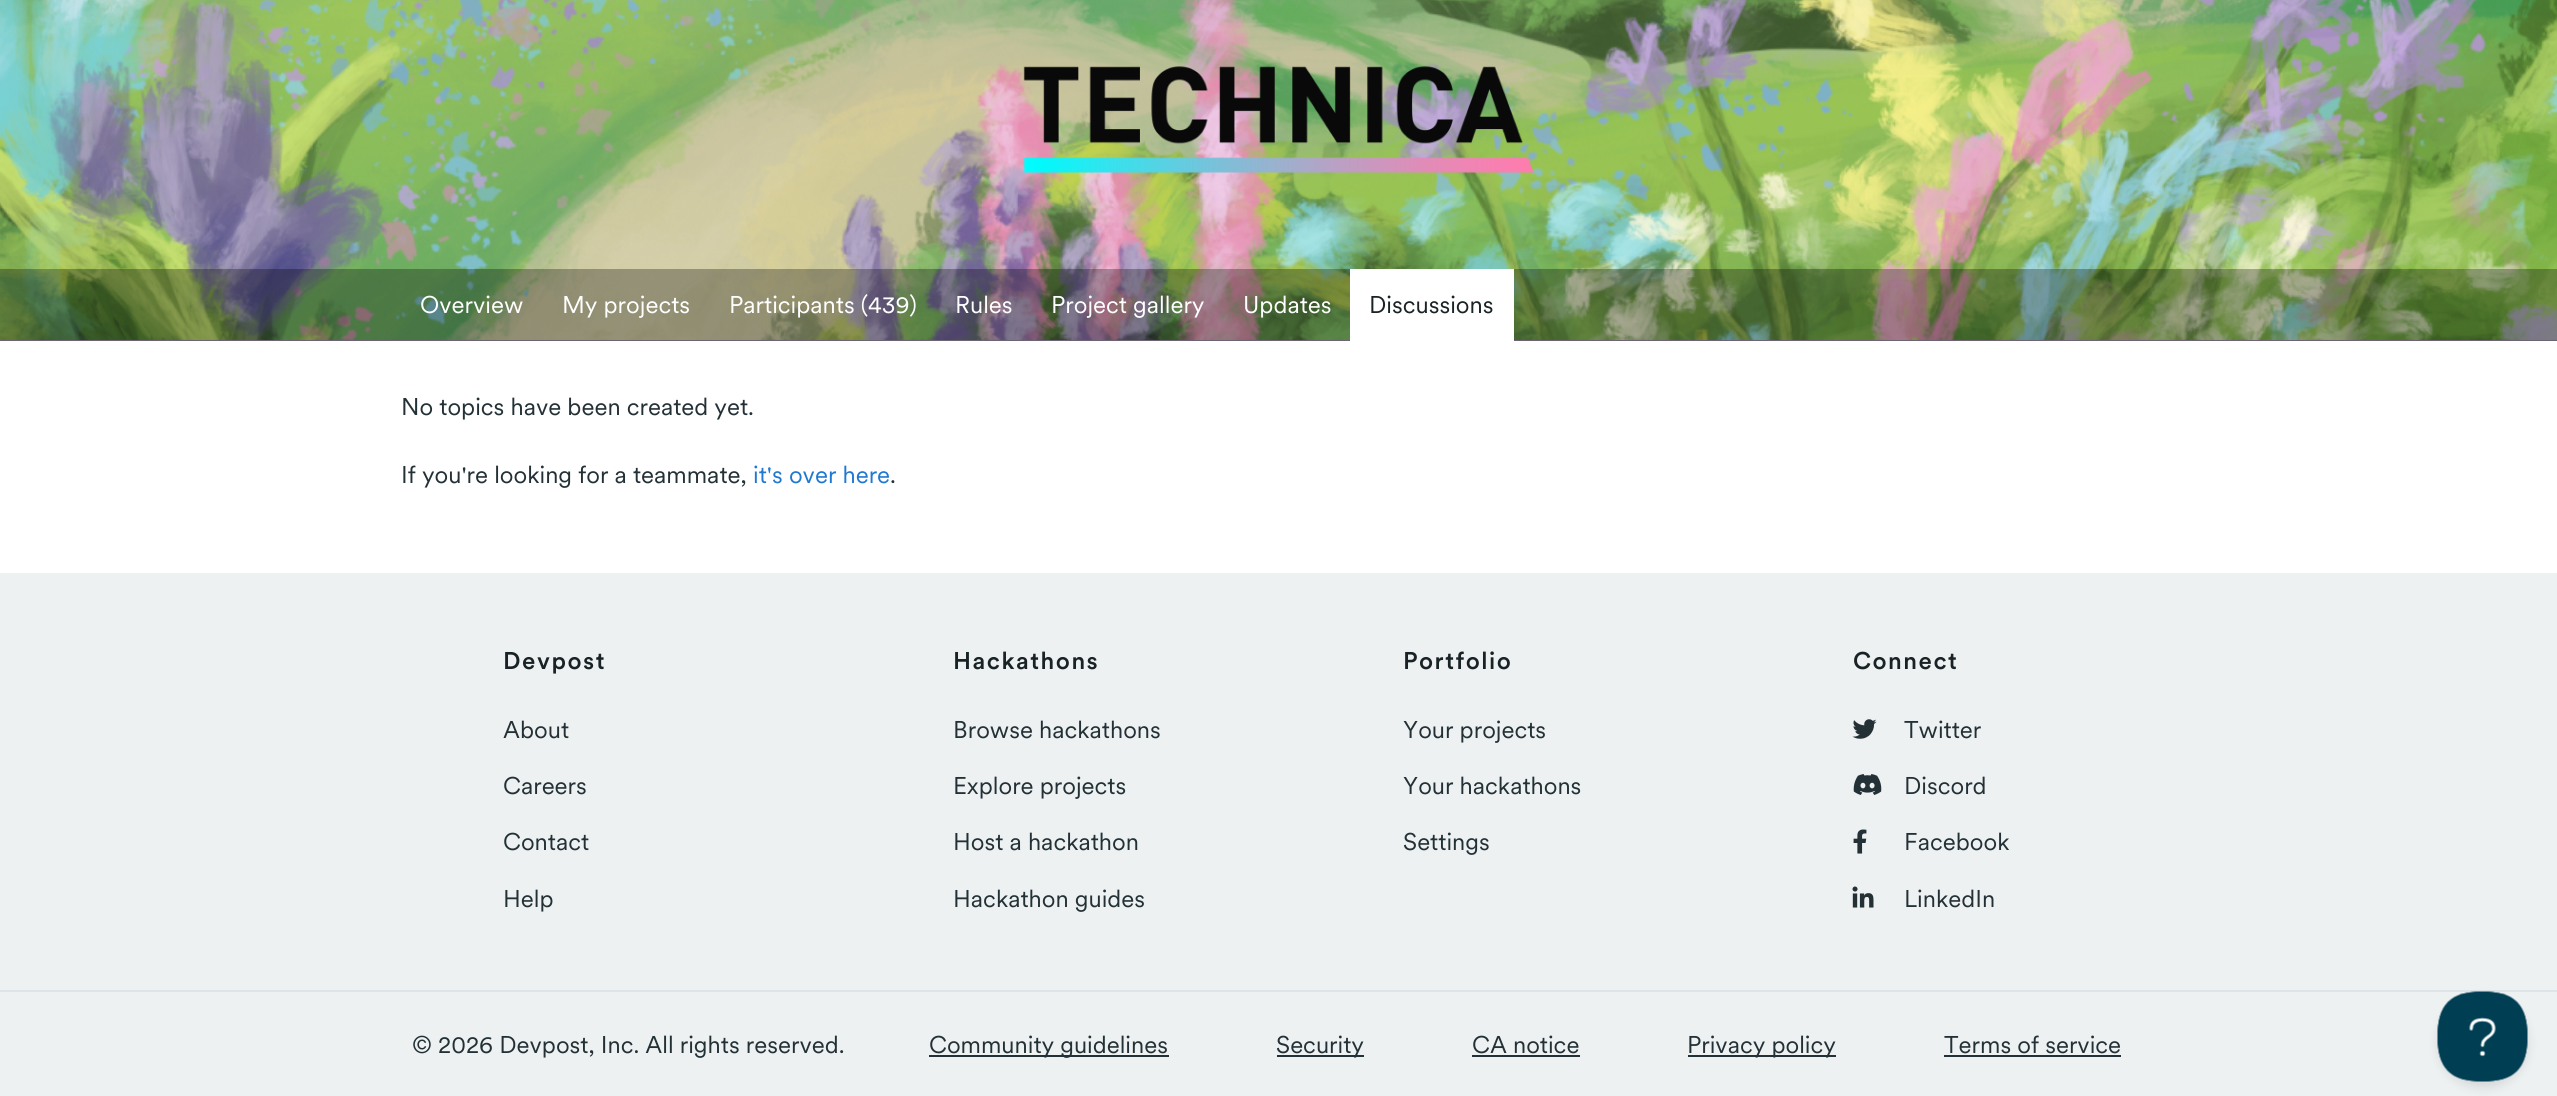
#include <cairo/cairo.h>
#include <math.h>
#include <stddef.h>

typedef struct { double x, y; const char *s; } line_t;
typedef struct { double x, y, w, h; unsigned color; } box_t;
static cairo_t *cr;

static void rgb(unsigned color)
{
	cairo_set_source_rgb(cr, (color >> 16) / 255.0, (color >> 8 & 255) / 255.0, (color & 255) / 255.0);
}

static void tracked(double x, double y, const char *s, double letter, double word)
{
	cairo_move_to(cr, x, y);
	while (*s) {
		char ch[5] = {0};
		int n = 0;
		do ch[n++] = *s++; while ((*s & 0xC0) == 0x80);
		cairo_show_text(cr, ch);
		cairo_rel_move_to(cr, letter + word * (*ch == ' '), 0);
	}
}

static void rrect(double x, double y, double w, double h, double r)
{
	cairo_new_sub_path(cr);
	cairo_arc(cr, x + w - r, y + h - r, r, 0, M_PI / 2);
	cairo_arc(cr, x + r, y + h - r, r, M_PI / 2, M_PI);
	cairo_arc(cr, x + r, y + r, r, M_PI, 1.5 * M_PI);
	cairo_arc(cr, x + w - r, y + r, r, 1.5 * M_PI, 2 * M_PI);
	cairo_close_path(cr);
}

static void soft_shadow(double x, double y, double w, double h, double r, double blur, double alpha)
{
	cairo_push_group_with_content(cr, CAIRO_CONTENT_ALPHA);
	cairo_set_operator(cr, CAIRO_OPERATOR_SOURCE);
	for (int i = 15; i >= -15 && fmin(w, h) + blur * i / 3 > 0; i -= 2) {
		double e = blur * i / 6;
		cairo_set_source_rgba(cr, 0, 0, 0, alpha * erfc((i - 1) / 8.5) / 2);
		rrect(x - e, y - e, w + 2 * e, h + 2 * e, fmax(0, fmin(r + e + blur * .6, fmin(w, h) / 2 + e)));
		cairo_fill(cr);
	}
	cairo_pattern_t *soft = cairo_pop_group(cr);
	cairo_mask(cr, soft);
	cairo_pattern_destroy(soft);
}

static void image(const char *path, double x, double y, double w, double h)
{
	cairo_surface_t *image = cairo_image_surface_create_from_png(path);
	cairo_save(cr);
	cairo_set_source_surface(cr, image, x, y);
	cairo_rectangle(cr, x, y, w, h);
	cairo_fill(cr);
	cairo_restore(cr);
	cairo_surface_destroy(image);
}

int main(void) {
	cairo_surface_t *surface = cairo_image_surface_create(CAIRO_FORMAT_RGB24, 2557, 1096);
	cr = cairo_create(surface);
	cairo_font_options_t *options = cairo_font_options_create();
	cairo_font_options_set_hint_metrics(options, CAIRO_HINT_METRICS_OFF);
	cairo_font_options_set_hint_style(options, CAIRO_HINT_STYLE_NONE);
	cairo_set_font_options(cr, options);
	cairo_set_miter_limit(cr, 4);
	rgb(0xffffff);
	cairo_paint(cr);
	rgb(0x9a8da5);
	cairo_rectangle(cr, 0, 340, 2557, 1);
	cairo_fill(cr);
	image("img/1.png", 0, 0, 2557, 340);
	image("img/2.png", 1023, 66, 511, 107);
	cairo_set_source_rgba(cr, 0, 0, 0, 0.3);
	cairo_rectangle(cr, 0, 269, 2557, 72);
	cairo_fill(cr);
	rgb(0xffffff);
	cairo_rectangle(cr, 1350, 269, 164, 72);
	cairo_fill(cr);
	rgb(0xedf1f2);
	cairo_rectangle(cr, 0, 573, 2557, 523);
	cairo_fill(cr);
	image("img/3.png", 1852, 719, 25, 20);
	image("img/4.png", 1853, 774, 29, 21);
	image("img/5.png", 1853, 829, 14, 25);
	image("img/6.png", 1852, 886, 22, 22);
	{
		static const box_t items[] = {
			{0, 990, 2557, 2, 0xdce6e9},
			{929, 1055, 240, 2, 0x233136},
			{1277, 1055, 87, 2, 0x233136},
			{1472, 1055, 108, 2, 0x233136},
			{1688, 1055, 148, 2, 0x233136},
			{1944, 1055, 177, 2, 0x233136},
		};
		for (size_t i = 0; i < sizeof items / sizeof *items; i++) {
			rgb(items[i].color);
			cairo_rectangle(cr, items[i].x, items[i].y, items[i].w, items[i].h);
			cairo_fill(cr);
		}
	}
	rgb(0x000000);
	soft_shadow(2438, 998, 90, 90, 45, 5, 0.1);
	image("img/7.png", 2437, 991, 91, 91);
	cairo_select_font_face(cr, "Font", CAIRO_FONT_SLANT_NORMAL, CAIRO_FONT_WEIGHT_NORMAL);
	cairo_set_font_size(cr, 24);
	rgb(0xffffff);
	{
		static const line_t items[] = {
			{420, 313, "Overview"},
			{562, 313, "My projects"},
			{729, 313, "Participants (439)"},
			{955, 313, "Rules"},
			{1051, 313, "Project gallery"},
			{1243, 313, "Updates"},
		};
		for (size_t i = 0; i < sizeof items / sizeof *items; i++) {
			cairo_move_to(cr, items[i].x, items[i].y);
			cairo_show_text(cr, items[i].s);
		}
	}
	rgb(0x192325);
	cairo_move_to(cr, 1369, 313);
	cairo_show_text(cr, "Discussions");
	rgb(0x233136);
	cairo_move_to(cr, 401, 415);
	cairo_show_text(cr, "No topics have been created yet.");
	cairo_move_to(cr, 401, 483);
	cairo_show_text(cr, "If you're looking for a teammate,");
	rgb(0x1f78d1);
	cairo_move_to(cr, 753, 483);
	cairo_show_text(cr, "it's over here");
	rgb(0x233136);
	cairo_move_to(cr, 890, 483);
	cairo_show_text(cr, ".");
	cairo_select_font_face(cr, "Font Medium", CAIRO_FONT_SLANT_NORMAL, CAIRO_FONT_WEIGHT_NORMAL);
	rgb(0x192325);
	tracked(503, 669, "Devpost", 1.5, 0);
	cairo_select_font_face(cr, "Font", CAIRO_FONT_SLANT_NORMAL, CAIRO_FONT_WEIGHT_NORMAL);
	rgb(0x233136);
	{
		static const line_t items[] = {
			{503, 738, "About"},
			{503, 794, "Careers"},
			{503, 850, "Contact"},
			{503, 907, "Help"},
		};
		for (size_t i = 0; i < sizeof items / sizeof *items; i++) {
			cairo_move_to(cr, items[i].x, items[i].y);
			cairo_show_text(cr, items[i].s);
		}
	}
	cairo_select_font_face(cr, "Font Medium", CAIRO_FONT_SLANT_NORMAL, CAIRO_FONT_WEIGHT_NORMAL);
	rgb(0x192325);
	tracked(953, 669, "Hackathons", 1.5, 0);
	cairo_select_font_face(cr, "Font", CAIRO_FONT_SLANT_NORMAL, CAIRO_FONT_WEIGHT_NORMAL);
	rgb(0x233136);
	{
		static const line_t items[] = {
			{953, 738, "Browse hackathons"},
			{953, 794, "Explore projects"},
			{953, 850, "Host a hackathon"},
			{953, 907, "Hackathon guides"},
		};
		for (size_t i = 0; i < sizeof items / sizeof *items; i++) {
			cairo_move_to(cr, items[i].x, items[i].y);
			cairo_show_text(cr, items[i].s);
		}
	}
	cairo_select_font_face(cr, "Font Medium", CAIRO_FONT_SLANT_NORMAL, CAIRO_FONT_WEIGHT_NORMAL);
	rgb(0x192325);
	tracked(1403, 669, "Portfolio", 1.5, 0);
	cairo_select_font_face(cr, "Font", CAIRO_FONT_SLANT_NORMAL, CAIRO_FONT_WEIGHT_NORMAL);
	rgb(0x233136);
	{
		static const line_t items[] = {
			{1403, 738, "Your projects"},
			{1403, 794, "Your hackathons"},
			{1403, 850, "Settings"},
		};
		for (size_t i = 0; i < sizeof items / sizeof *items; i++) {
			cairo_move_to(cr, items[i].x, items[i].y);
			cairo_show_text(cr, items[i].s);
		}
	}
	cairo_select_font_face(cr, "Font Medium", CAIRO_FONT_SLANT_NORMAL, CAIRO_FONT_WEIGHT_NORMAL);
	rgb(0x192325);
	tracked(1853, 669, "Connect", 1.5, 0);
	cairo_select_font_face(cr, "Font", CAIRO_FONT_SLANT_NORMAL, CAIRO_FONT_WEIGHT_NORMAL);
	rgb(0x233136);
	{
		static const line_t items[] = {
			{1904, 738, "Twitter"},
			{1904, 794, "Discord"},
			{1904, 850, "Facebook"},
			{1904, 907, "LinkedIn"},
			{412, 1053, "© 2026 Devpost, Inc. All rights reserved."},
			{929, 1053, "Community guidelines"},
			{1276, 1053, "Security"},
			{1472, 1053, "CA notice"},
			{1687, 1053, "Privacy policy"},
			{1944, 1053, "Terms of service"},
		};
		for (size_t i = 0; i < sizeof items / sizeof *items; i++) {
			cairo_move_to(cr, items[i].x, items[i].y);
			cairo_show_text(cr, items[i].s);
		}
	}
	cairo_surface_write_to_png(surface, "page.png");
	cairo_font_options_destroy(options);
	cairo_destroy(cr);
	cairo_surface_destroy(surface);
	return 0;
}
